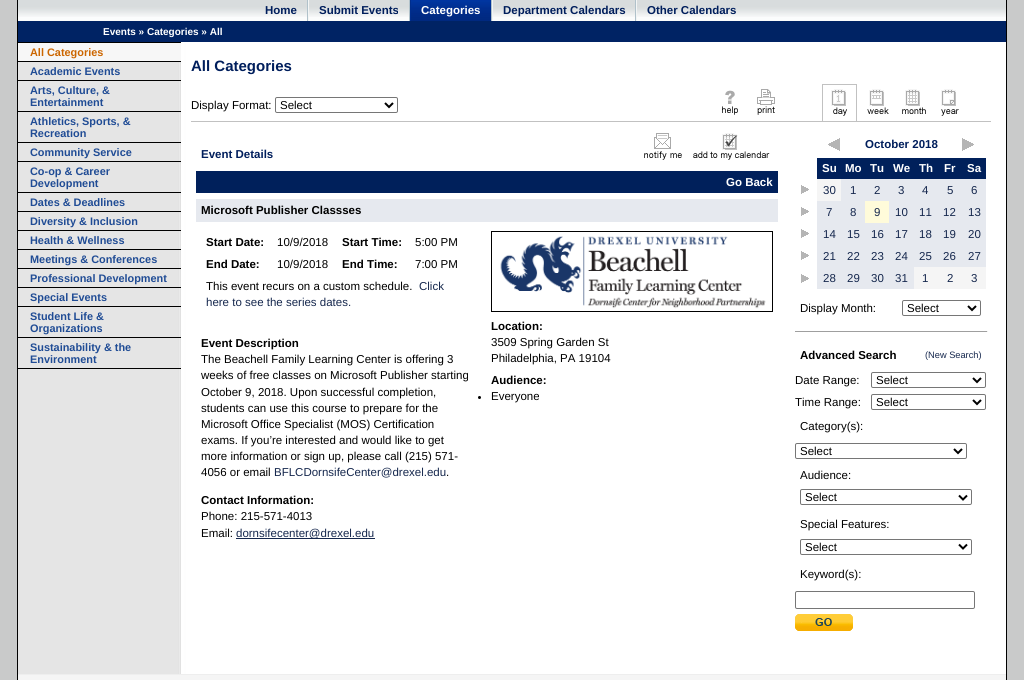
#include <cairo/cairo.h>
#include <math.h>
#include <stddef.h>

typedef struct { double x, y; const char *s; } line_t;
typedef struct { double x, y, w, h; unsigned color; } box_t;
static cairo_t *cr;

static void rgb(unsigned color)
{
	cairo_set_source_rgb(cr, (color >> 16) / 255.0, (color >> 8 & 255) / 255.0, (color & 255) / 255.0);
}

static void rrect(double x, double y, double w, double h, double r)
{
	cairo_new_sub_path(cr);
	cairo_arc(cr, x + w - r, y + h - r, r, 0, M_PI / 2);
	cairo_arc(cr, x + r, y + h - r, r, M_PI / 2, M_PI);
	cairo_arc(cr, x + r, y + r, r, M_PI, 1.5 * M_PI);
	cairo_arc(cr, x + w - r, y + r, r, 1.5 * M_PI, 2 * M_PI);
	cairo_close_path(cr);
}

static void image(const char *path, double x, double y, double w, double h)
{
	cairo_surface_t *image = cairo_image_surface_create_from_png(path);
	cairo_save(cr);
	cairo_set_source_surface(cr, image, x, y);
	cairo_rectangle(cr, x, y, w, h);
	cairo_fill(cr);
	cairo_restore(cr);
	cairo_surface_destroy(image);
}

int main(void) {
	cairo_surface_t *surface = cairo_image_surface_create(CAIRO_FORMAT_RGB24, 1024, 680);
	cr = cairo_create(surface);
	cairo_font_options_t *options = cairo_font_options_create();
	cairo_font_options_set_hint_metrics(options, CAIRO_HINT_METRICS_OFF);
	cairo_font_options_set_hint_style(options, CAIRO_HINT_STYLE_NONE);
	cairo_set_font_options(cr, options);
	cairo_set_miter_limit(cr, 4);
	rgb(0xc9caca);
	cairo_paint(cr);
	{
		static const box_t items[] = {
			{1006, 0, 1, 680, 0x000000},
			{17, 0, 1, 680, 0x000000},
			{18, 17, 988, 4, 0xfbfcfc},
		};
		for (size_t i = 0; i < sizeof items / sizeof *items; i++) {
			rgb(items[i].color);
			cairo_rectangle(cr, items[i].x, items[i].y, items[i].w, items[i].h);
			cairo_fill(cr);
		}
	}
	image("img/1.png", 18, 0, 988, 17);
	{
		static const box_t items[] = {
			{307, 0, 1, 21, 0xb0c1ca},
			{409, 0, 1, 21, 0xb0c1ca},
			{308, 0, 1, 21, 0xf3f5f5},
		};
		for (size_t i = 0; i < sizeof items / sizeof *items; i++) {
			rgb(items[i].color);
			cairo_rectangle(cr, items[i].x, items[i].y, items[i].w, items[i].h);
			cairo_fill(cr);
		}
	}
	image("img/2.png", 411, 0, 80, 21);
	{
		static const box_t items[] = {
			{491, 0, 1, 21, 0xb0c1ca},
			{410, 0, 1, 21, 0x002e8d},
			{635, 0, 1, 21, 0xb0c1ca},
			{492, 0, 1, 21, 0xf3f5f5},
			{636, 0, 1, 21, 0xf3f5f5},
			{18, 21, 988, 21, 0x002364},
		};
		for (size_t i = 0; i < sizeof items / sizeof *items; i++) {
			rgb(items[i].color);
			cairo_rectangle(cr, items[i].x, items[i].y, items[i].w, items[i].h);
			cairo_fill(cr);
		}
	}
	image("img/3.png", 18, 42, 988, 632);
	{
		static const box_t items[] = {
			{18, 42, 163, 1, 0x000000},
			{18, 61, 163, 1, 0x000000},
			{18, 43, 163, 18, 0xf7f7f7},
			{18, 80, 163, 1, 0x000000},
			{18, 111, 163, 1, 0x000000},
			{18, 142, 163, 1, 0x000000},
			{18, 161, 163, 1, 0x000000},
			{18, 192, 163, 1, 0x000000},
			{18, 211, 163, 1, 0x000000},
			{18, 230, 163, 1, 0x000000},
			{18, 249, 163, 1, 0x000000},
			{18, 268, 163, 1, 0x000000},
			{18, 287, 163, 1, 0x000000},
			{18, 306, 163, 1, 0x000000},
			{18, 337, 163, 1, 0x000000},
			{18, 368, 163, 1, 0x000000},
			{191, 121, 800, 1, 0xc1c1c1},
		};
		for (size_t i = 0; i < sizeof items / sizeof *items; i++) {
			rgb(items[i].color);
			cairo_rectangle(cr, items[i].x, items[i].y, items[i].w, items[i].h);
			cairo_fill(cr);
		}
	}
	rrect(275.5, 97.5, 122, 15, 1.5);
	rgb(0x767676);
	cairo_set_line_width(cr, 1);
	cairo_stroke(cr);
	cairo_new_path(cr);
	cairo_move_to(cr, 385, 103);
	cairo_line_to(cr, 389, 107);
	cairo_line_to(cr, 393, 103);
	rgb(0x000000);
	cairo_set_line_width(cr, 2);
	cairo_stroke(cr);
	image("img/4.png", 722, 90, 16, 25);
	image("img/5.png", 757, 89, 18, 26);
	{
		static const box_t items[] = {
			{822, 84, 35, 1, 0xc1c1c1},
			{856, 84, 1, 37, 0xc1c1c1},
			{822, 84, 1, 37, 0xc1c1c1},
		};
		for (size_t i = 0; i < sizeof items / sizeof *items; i++) {
			rgb(items[i].color);
			cairo_rectangle(cr, items[i].x, items[i].y, items[i].w, items[i].h);
			cairo_fill(cr);
		}
	}
	image("img/6.png", 831, 89, 16, 27);
	image("img/7.png", 867, 89, 22, 25);
	image("img/8.png", 902, 89, 24, 25);
	image("img/9.png", 941, 89, 18, 27);
	image("img/10.png", 644, 133, 38, 27);
	image("img/11.png", 693, 133, 77, 27);
	{
		static const box_t items[] = {
			{196, 171, 582, 22, 0x00205b},
			{196, 199, 582, 23, 0xe6e9ef},
			{236, 538, 139, 1, 0x15274d},
		};
		for (size_t i = 0; i < sizeof items / sizeof *items; i++) {
			rgb(items[i].color);
			cairo_rectangle(cr, items[i].x, items[i].y, items[i].w, items[i].h);
			cairo_fill(cr);
		}
	}
	cairo_rectangle(cr, 491.5, 231.5, 281, 80);
	rgb(0x000000);
	cairo_set_line_width(cr, 1);
	cairo_stroke(cr);
	image("img/12.png", 500, 236, 266, 73);
	cairo_arc(cr, 479.5, 397.5, 1.5, 0, 2 * M_PI);
	cairo_fill(cr);
	image("img/13.png", 828, 138, 12, 13);
	image("img/14.png", 962, 138, 12, 13);
	rgb(0x00205b);
	cairo_rectangle(cr, 817, 158, 169, 21);
	cairo_fill(cr);
	image("img/15.png", 801, 185, 8, 9);
	rgb(0xf5f5f5);
	cairo_rectangle(cr, 817, 179, 24, 22);
	cairo_fill(cr);
	rgb(0xe6e9ef);
	cairo_rectangle(cr, 841, 179, 145, 22);
	cairo_fill(cr);
	image("img/15.png", 801, 207, 8, 9);
	{
		static const box_t items[] = {
			{817, 201, 48, 22, 0xe6e9ef},
			{865, 201, 24, 22, 0xfffbda},
			{889, 201, 97, 22, 0xe6e9ef},
		};
		for (size_t i = 0; i < sizeof items / sizeof *items; i++) {
			rgb(items[i].color);
			cairo_rectangle(cr, items[i].x, items[i].y, items[i].w, items[i].h);
			cairo_fill(cr);
		}
	}
	image("img/15.png", 801, 229, 8, 9);
	cairo_rectangle(cr, 817, 223, 169, 22);
	cairo_fill(cr);
	image("img/15.png", 801, 251, 8, 9);
	cairo_rectangle(cr, 817, 245, 169, 22);
	cairo_fill(cr);
	image("img/15.png", 801, 274, 8, 9);
	cairo_rectangle(cr, 817, 267, 97, 22);
	cairo_fill(cr);
	rgb(0xf5f5f5);
	cairo_rectangle(cr, 914, 267, 72, 22);
	cairo_fill(cr);
	rrect(902.5, 300.5, 78, 15, 1.5);
	rgb(0x767676);
	cairo_stroke(cr);
	cairo_new_path(cr);
	cairo_move_to(cr, 968, 306);
	cairo_line_to(cr, 972, 310);
	cairo_line_to(cr, 976, 306);
	rgb(0x000000);
	cairo_set_line_width(cr, 2);
	cairo_stroke(cr);
	rgb(0x9f9f9f);
	cairo_rectangle(cr, 795, 331, 193, 1);
	cairo_fill(cr);
	rgb(0xeeeeee);
	cairo_rectangle(cr, 987, 331, 1, 1);
	cairo_fill(cr);
	rrect(871.5, 372.5, 114, 15, 1.5);
	rgb(0x767676);
	cairo_set_line_width(cr, 1);
	cairo_stroke(cr);
	cairo_new_path(cr);
	cairo_move_to(cr, 973, 378);
	cairo_line_to(cr, 977, 382);
	cairo_line_to(cr, 981, 378);
	rgb(0x000000);
	cairo_set_line_width(cr, 2);
	cairo_stroke(cr);
	rrect(871.5, 394.5, 114, 15, 1.5);
	rgb(0x767676);
	cairo_set_line_width(cr, 1);
	cairo_stroke(cr);
	cairo_new_path(cr);
	cairo_move_to(cr, 973, 400);
	cairo_line_to(cr, 977, 404);
	cairo_line_to(cr, 981, 400);
	rgb(0x000000);
	cairo_set_line_width(cr, 2);
	cairo_stroke(cr);
	rrect(795.5, 443.5, 171, 15, 1.5);
	rgb(0x767676);
	cairo_set_line_width(cr, 1);
	cairo_stroke(cr);
	cairo_new_path(cr);
	cairo_move_to(cr, 954, 449);
	cairo_line_to(cr, 958, 453);
	cairo_line_to(cr, 962, 449);
	rgb(0x000000);
	cairo_set_line_width(cr, 2);
	cairo_stroke(cr);
	rrect(800.5, 489.5, 171, 15, 1.5);
	rgb(0x767676);
	cairo_set_line_width(cr, 1);
	cairo_stroke(cr);
	cairo_new_path(cr);
	cairo_move_to(cr, 959, 495.5);
	cairo_line_to(cr, 963, 499.5);
	cairo_line_to(cr, 967, 495.5);
	rgb(0x000000);
	cairo_set_line_width(cr, 2);
	cairo_stroke(cr);
	rrect(800.5, 539.5, 171, 15, 1.5);
	rgb(0x767676);
	cairo_set_line_width(cr, 1);
	cairo_stroke(cr);
	cairo_new_path(cr);
	cairo_move_to(cr, 959, 544.5);
	cairo_line_to(cr, 963, 548.5);
	cairo_line_to(cr, 967, 544.5);
	rgb(0x000000);
	cairo_set_line_width(cr, 2);
	cairo_stroke(cr);
	rrect(795.5, 591.5, 179, 17, 1.5);
	rgb(0x767676);
	cairo_set_line_width(cr, 1);
	cairo_stroke(cr);
	image("img/16.png", 795, 614, 58, 17);
	rgb(0xeeeeee);
	cairo_rectangle(cr, 18, 674, 988, 1);
	cairo_fill(cr);
	rgb(0xf5f5f5);
	cairo_rectangle(cr, 18, 675, 988, 5);
	cairo_fill(cr);
	cairo_select_font_face(cr, "Liberation Sans", CAIRO_FONT_SLANT_NORMAL, CAIRO_FONT_WEIGHT_BOLD);
	cairo_set_font_size(cr, 11.5);
	rgb(0x001e5c);
	cairo_move_to(cr, 265, 14);
	cairo_show_text(cr, "Home");
	cairo_move_to(cr, 319, 14);
	cairo_show_text(cr, "Submit Events");
	rgb(0xffffff);
	cairo_move_to(cr, 421, 14);
	cairo_show_text(cr, "Categories");
	rgb(0x001e5c);
	cairo_move_to(cr, 503, 14);
	cairo_show_text(cr, "Department Calendars");
	cairo_move_to(cr, 647, 14);
	cairo_show_text(cr, "Other Calendars");
	cairo_set_font_size(cr, 10);
	rgb(0xffffff);
	cairo_move_to(cr, 103, 35);
	cairo_show_text(cr, "Events » Categories » All");
	cairo_set_font_size(cr, 10.9);
	rgb(0xcc6600);
	cairo_move_to(cr, 30, 56);
	cairo_show_text(cr, "All Categories");
	rgb(0x204c95);
	{
		static const line_t items[] = {
			{30, 75, "Academic Events"},
			{30, 94, "Arts, Culture, &"},
			{30, 106, "Entertainment"},
			{30, 125, "Athletics, Sports, &"},
			{30, 137, "Recreation"},
			{30, 156, "Community Service"},
			{30, 175, "Co-op & Career"},
			{30, 187, "Development"},
			{30, 206, "Dates & Deadlines"},
			{30, 225, "Diversity & Inclusion"},
			{30, 244, "Health & Wellness"},
			{30, 263, "Meetings & Conferences"},
			{30, 282, "Professional Development"},
			{30, 301, "Special Events"},
			{30, 320, "Student Life &"},
			{30, 332, "Organizations"},
			{30, 351, "Sustainability & the"},
			{30, 363, "Environment"},
		};
		for (size_t i = 0; i < sizeof items / sizeof *items; i++) {
			cairo_move_to(cr, items[i].x, items[i].y);
			cairo_show_text(cr, items[i].s);
		}
	}
	cairo_set_font_size(cr, 15);
	rgb(0x001e5c);
	cairo_move_to(cr, 191, 71);
	cairo_show_text(cr, "All Categories");
	cairo_select_font_face(cr, "Liberation Sans", CAIRO_FONT_SLANT_NORMAL, CAIRO_FONT_WEIGHT_NORMAL);
	cairo_set_font_size(cr, 11.5);
	rgb(0x000000);
	cairo_move_to(cr, 191, 109);
	cairo_show_text(cr, "Display Format:");
	cairo_move_to(cr, 280, 109);
	cairo_show_text(cr, "Select");
	cairo_select_font_face(cr, "Liberation Sans", CAIRO_FONT_SLANT_NORMAL, CAIRO_FONT_WEIGHT_BOLD);
	rgb(0x001e5c);
	cairo_move_to(cr, 201, 158);
	cairo_show_text(cr, "Event Details");
	rgb(0xffffff);
	cairo_move_to(cr, 726, 186);
	cairo_show_text(cr, "Go Back");
	rgb(0x000000);
	cairo_move_to(cr, 201, 214);
	cairo_show_text(cr, "Microsoft Publisher Classses");
	cairo_move_to(cr, 206, 246);
	cairo_show_text(cr, "Start Date:");
	cairo_select_font_face(cr, "Liberation Sans", CAIRO_FONT_SLANT_NORMAL, CAIRO_FONT_WEIGHT_NORMAL);
	cairo_move_to(cr, 277, 246);
	cairo_show_text(cr, "10/9/2018");
	cairo_select_font_face(cr, "Liberation Sans", CAIRO_FONT_SLANT_NORMAL, CAIRO_FONT_WEIGHT_BOLD);
	cairo_move_to(cr, 342, 246);
	cairo_show_text(cr, "Start Time:");
	cairo_select_font_face(cr, "Liberation Sans", CAIRO_FONT_SLANT_NORMAL, CAIRO_FONT_WEIGHT_NORMAL);
	cairo_move_to(cr, 415, 246);
	cairo_show_text(cr, "5:00 PM");
	cairo_select_font_face(cr, "Liberation Sans", CAIRO_FONT_SLANT_NORMAL, CAIRO_FONT_WEIGHT_BOLD);
	cairo_move_to(cr, 206, 268);
	cairo_show_text(cr, "End Date:");
	cairo_select_font_face(cr, "Liberation Sans", CAIRO_FONT_SLANT_NORMAL, CAIRO_FONT_WEIGHT_NORMAL);
	cairo_move_to(cr, 277, 268);
	cairo_show_text(cr, "10/9/2018");
	cairo_select_font_face(cr, "Liberation Sans", CAIRO_FONT_SLANT_NORMAL, CAIRO_FONT_WEIGHT_BOLD);
	cairo_move_to(cr, 342, 268);
	cairo_show_text(cr, "End Time:");
	cairo_select_font_face(cr, "Liberation Sans", CAIRO_FONT_SLANT_NORMAL, CAIRO_FONT_WEIGHT_NORMAL);
	cairo_move_to(cr, 415, 268);
	cairo_show_text(cr, "7:00 PM");
	cairo_move_to(cr, 206, 290);
	cairo_show_text(cr, "This event recurs on a custom schedule.");
	rgb(0x15274d);
	cairo_move_to(cr, 419, 290);
	cairo_show_text(cr, "Click");
	cairo_move_to(cr, 206, 306);
	cairo_show_text(cr, "here to see the series dates.");
	cairo_select_font_face(cr, "Liberation Sans", CAIRO_FONT_SLANT_NORMAL, CAIRO_FONT_WEIGHT_BOLD);
	rgb(0x000000);
	cairo_move_to(cr, 201, 347);
	cairo_show_text(cr, "Event Description");
	cairo_select_font_face(cr, "Liberation Sans", CAIRO_FONT_SLANT_NORMAL, CAIRO_FONT_WEIGHT_NORMAL);
	{
		static const line_t items[] = {
			{201, 363, "The Beachell Family Learning Center is offering 3"},
			{201, 379, "weeks of free classes on Microsoft Publisher starting"},
			{201, 396, "October 9, 2018. Upon successful completion,"},
			{201, 412, "students can use this course to prepare for the"},
			{201, 428, "Microsoft Office Specialist (MOS) Certification"},
			{201, 444, "exams. If you’re interested and would like to get"},
			{201, 460, "more information or sign up, please call (215) 571-"},
			{201, 476, "4056 or email"},
		};
		for (size_t i = 0; i < sizeof items / sizeof *items; i++) {
			cairo_move_to(cr, items[i].x, items[i].y);
			cairo_show_text(cr, items[i].s);
		}
	}
	rgb(0x15274d);
	cairo_move_to(cr, 274, 476);
	cairo_show_text(cr, "BFLCDornsifeCenter@drexel.edu");
	rgb(0x000000);
	cairo_move_to(cr, 446, 476);
	cairo_show_text(cr, ".");
	cairo_select_font_face(cr, "Liberation Sans", CAIRO_FONT_SLANT_NORMAL, CAIRO_FONT_WEIGHT_BOLD);
	cairo_move_to(cr, 201, 504);
	cairo_show_text(cr, "Contact Information:");
	cairo_select_font_face(cr, "Liberation Sans", CAIRO_FONT_SLANT_NORMAL, CAIRO_FONT_WEIGHT_NORMAL);
	cairo_move_to(cr, 201, 520);
	cairo_show_text(cr, "Phone: 215-571-4013");
	cairo_move_to(cr, 201, 537);
	cairo_show_text(cr, "Email:");
	rgb(0x15274d);
	cairo_move_to(cr, 236, 537);
	cairo_show_text(cr, "dornsifecenter@drexel.edu");
	cairo_select_font_face(cr, "Liberation Sans", CAIRO_FONT_SLANT_NORMAL, CAIRO_FONT_WEIGHT_BOLD);
	rgb(0x000000);
	cairo_move_to(cr, 491, 330);
	cairo_show_text(cr, "Location:");
	cairo_select_font_face(cr, "Liberation Sans", CAIRO_FONT_SLANT_NORMAL, CAIRO_FONT_WEIGHT_NORMAL);
	cairo_move_to(cr, 491, 346);
	cairo_show_text(cr, "3509 Spring Garden St");
	cairo_move_to(cr, 491, 362);
	cairo_show_text(cr, "Philadelphia, PA 19104");
	cairo_select_font_face(cr, "Liberation Sans", CAIRO_FONT_SLANT_NORMAL, CAIRO_FONT_WEIGHT_BOLD);
	cairo_move_to(cr, 491, 384);
	cairo_show_text(cr, "Audience:");
	cairo_select_font_face(cr, "Liberation Sans", CAIRO_FONT_SLANT_NORMAL, CAIRO_FONT_WEIGHT_NORMAL);
	cairo_move_to(cr, 491, 400);
	cairo_show_text(cr, "Everyone");
	cairo_select_font_face(cr, "Liberation Sans", CAIRO_FONT_SLANT_NORMAL, CAIRO_FONT_WEIGHT_BOLD);
	rgb(0x001e5c);
	cairo_move_to(cr, 865, 148);
	cairo_show_text(cr, "October 2018");
	rgb(0xffffff);
	{
		static const line_t items[] = {
			{822, 172, "Su"},
			{845, 172, "Mo"},
			{870, 172, "Tu"},
			{893, 172, "We"},
			{919, 172, "Th"},
			{944, 172, "Fr"},
			{967, 172, "Sa"},
		};
		for (size_t i = 0; i < sizeof items / sizeof *items; i++) {
			cairo_move_to(cr, items[i].x, items[i].y);
			cairo_show_text(cr, items[i].s);
		}
	}
	cairo_select_font_face(cr, "Liberation Sans", CAIRO_FONT_SLANT_NORMAL, CAIRO_FONT_WEIGHT_NORMAL);
	rgb(0x15274d);
	{
		static const line_t items[] = {
			{823, 194, "30"},
			{850, 194, "1"},
			{874, 194, "2"},
			{898, 194, "3"},
			{922, 194, "4"},
			{947, 194, "5"},
			{971, 194, "6"},
			{826, 216, "7"},
			{850, 216, "8"},
			{874, 216, "9"},
			{895, 216, "10"},
			{919, 216, "11"},
			{943, 216, "12"},
			{968, 216, "13"},
			{823, 238, "14"},
			{847, 238, "15"},
			{871, 238, "16"},
			{895, 238, "17"},
			{919, 238, "18"},
			{943, 238, "19"},
			{968, 238, "20"},
			{823, 260, "21"},
			{847, 260, "22"},
			{871, 260, "23"},
			{895, 260, "24"},
			{919, 260, "25"},
			{943, 260, "26"},
			{968, 260, "27"},
			{823, 282, "28"},
			{847, 282, "29"},
			{871, 282, "30"},
			{895, 282, "31"},
			{922, 282, "1"},
			{947, 282, "2"},
			{971, 282, "3"},
		};
		for (size_t i = 0; i < sizeof items / sizeof *items; i++) {
			cairo_move_to(cr, items[i].x, items[i].y);
			cairo_show_text(cr, items[i].s);
		}
	}
	rgb(0x000000);
	cairo_move_to(cr, 800, 312);
	cairo_show_text(cr, "Display Month:");
	cairo_move_to(cr, 907, 312);
	cairo_show_text(cr, "Select");
	cairo_select_font_face(cr, "Liberation Sans", CAIRO_FONT_SLANT_NORMAL, CAIRO_FONT_WEIGHT_BOLD);
	cairo_move_to(cr, 800, 359);
	cairo_show_text(cr, "Advanced Search");
	cairo_select_font_face(cr, "Liberation Sans", CAIRO_FONT_SLANT_NORMAL, CAIRO_FONT_WEIGHT_NORMAL);
	cairo_set_font_size(cr, 9.25);
	rgb(0x15274d);
	cairo_move_to(cr, 925, 358);
	cairo_show_text(cr, "(New Search)");
	cairo_set_font_size(cr, 11.5);
	rgb(0x000000);
	{
		static const line_t items[] = {
			{795, 384, "Date Range:"},
			{876, 384, "Select"},
			{795, 406, "Time Range:"},
			{876, 406, "Select"},
			{800, 430, "Category(s):"},
			{800, 455, "Select"},
			{800, 479, "Audience:"},
			{805, 501, "Select"},
			{800, 528, "Special Features:"},
			{805, 551, "Select"},
			{800, 578, "Keyword(s):"},
		};
		for (size_t i = 0; i < sizeof items / sizeof *items; i++) {
			cairo_move_to(cr, items[i].x, items[i].y);
			cairo_show_text(cr, items[i].s);
		}
	}
	cairo_surface_write_to_png(surface, "page.png");
	cairo_font_options_destroy(options);
	cairo_destroy(cr);
	cairo_surface_destroy(surface);
	return 0;
}
